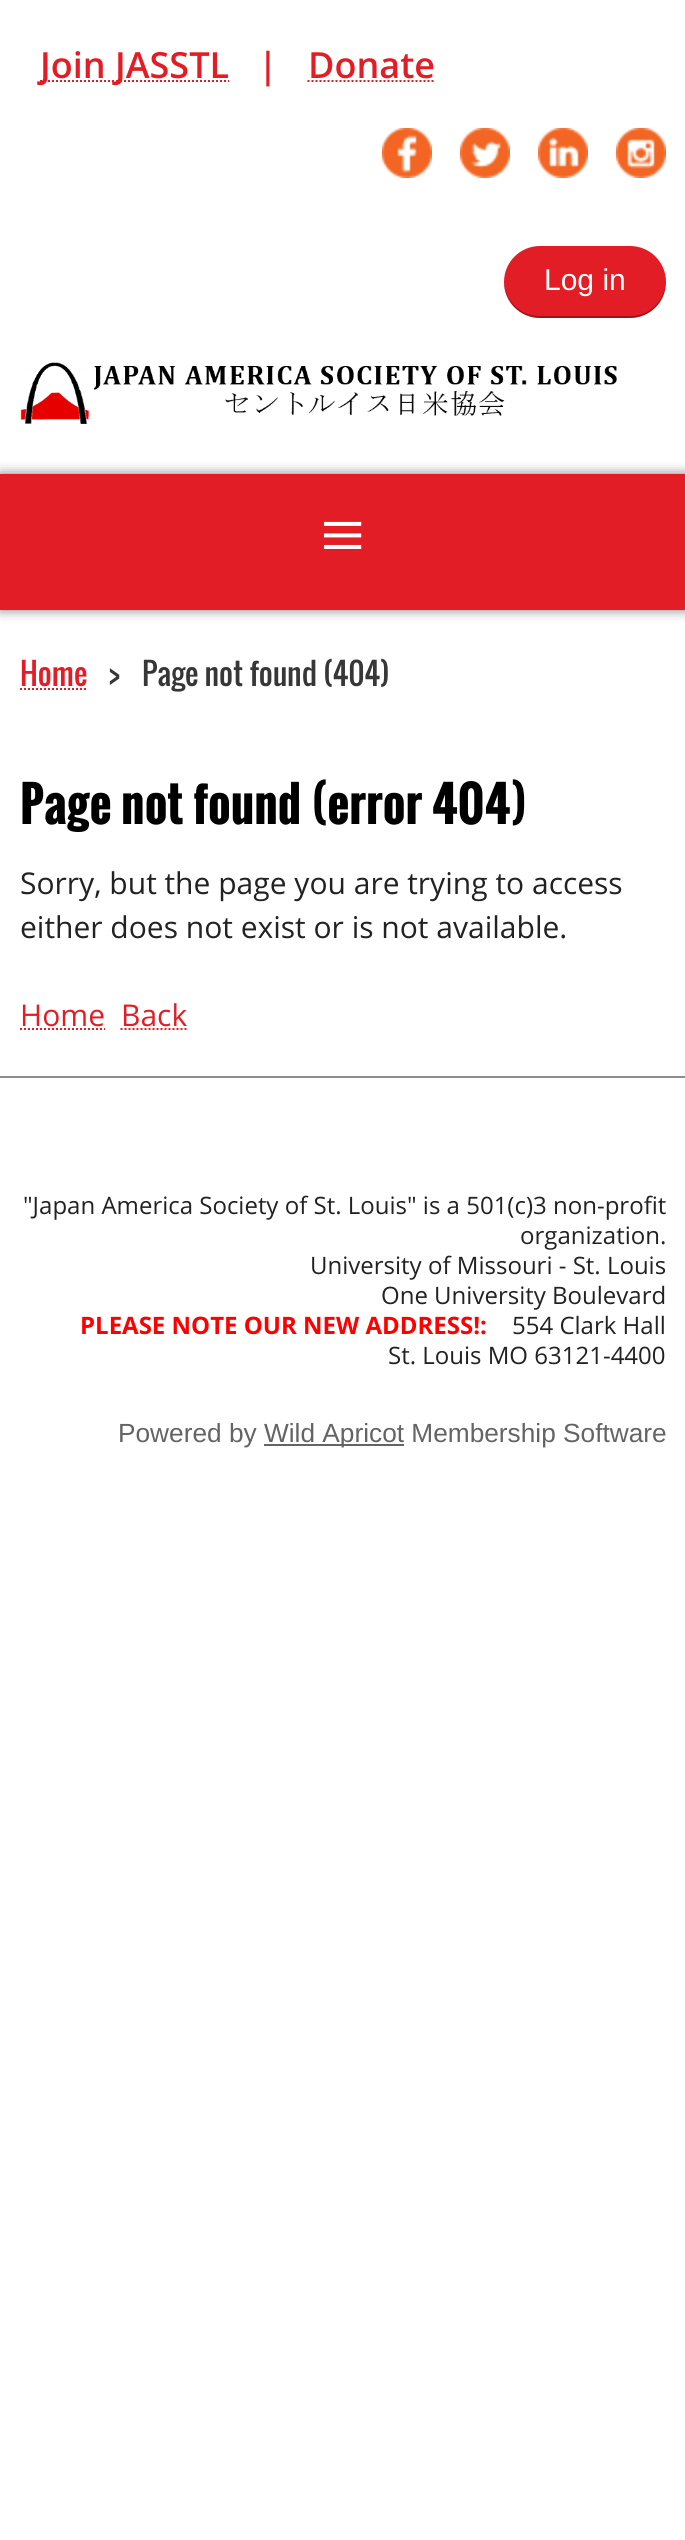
#include <cairo/cairo.h>
#include <math.h>
#include <stddef.h>

typedef struct { double x, y; const char *s; } line_t;
static cairo_t *cr;

static void rgb(unsigned color)
{
	cairo_set_source_rgb(cr, (color >> 16) / 255.0, (color >> 8 & 255) / 255.0, (color & 255) / 255.0);
}

static void rrect(double x, double y, double w, double h, double r)
{
	cairo_new_sub_path(cr);
	cairo_arc(cr, x + w - r, y + h - r, r, 0, M_PI / 2);
	cairo_arc(cr, x + r, y + h - r, r, M_PI / 2, M_PI);
	cairo_arc(cr, x + r, y + r, r, M_PI, 1.5 * M_PI);
	cairo_arc(cr, x + w - r, y + r, r, 1.5 * M_PI, 2 * M_PI);
	cairo_close_path(cr);
}

static void soft_shadow(double x, double y, double w, double h, double r, double blur, double alpha)
{
	cairo_push_group_with_content(cr, CAIRO_CONTENT_ALPHA);
	cairo_set_operator(cr, CAIRO_OPERATOR_SOURCE);
	for (int i = 15; i >= -15 && fmin(w, h) + blur * i / 3 > 0; i -= 2) {
		double e = blur * i / 6;
		cairo_set_source_rgba(cr, 0, 0, 0, alpha * erfc((i - 1) / 8.5) / 2);
		rrect(x - e, y - e, w + 2 * e, h + 2 * e, fmax(0, fmin(r + e + blur * .6, fmin(w, h) / 2 + e)));
		cairo_fill(cr);
	}
	cairo_pattern_t *soft = cairo_pop_group(cr);
	cairo_mask(cr, soft);
	cairo_pattern_destroy(soft);
}

static void image(const char *path, double x, double y, double w, double h)
{
	cairo_surface_t *image = cairo_image_surface_create_from_png(path);
	cairo_save(cr);
	cairo_set_source_surface(cr, image, x, y);
	cairo_rectangle(cr, x, y, w, h);
	cairo_fill(cr);
	cairo_restore(cr);
	cairo_surface_destroy(image);
}

int main(void) {
	cairo_surface_t *surface = cairo_image_surface_create(CAIRO_FORMAT_RGB24, 685, 2540);
	cr = cairo_create(surface);
	cairo_font_options_t *options = cairo_font_options_create();
	cairo_font_options_set_hint_metrics(options, CAIRO_HINT_METRICS_OFF);
	cairo_font_options_set_hint_style(options, CAIRO_HINT_STYLE_NONE);
	cairo_set_font_options(cr, options);
	cairo_set_miter_limit(cr, 4);
	rgb(0xffffff);
	cairo_paint(cr);
	cairo_new_path(cr);
	cairo_move_to(cr, 40, 81);
	cairo_line_to(cr, 229, 81);
	rgb(0xe21d25);
	cairo_set_dash(cr, (double[]){2, 2}, 2, 0);
	cairo_stroke(cr);
	cairo_new_path(cr);
	cairo_move_to(cr, 307.5, 81);
	cairo_line_to(cr, 434.5, 81);
	cairo_stroke(cr);
	image("img/1.png", 382, 128, 50, 50);
	image("img/2.png", 460, 128, 50, 50);
	image("img/3.png", 538, 128, 50, 50);
	image("img/4.png", 616, 128, 50, 50);
	rrect(504, 246, 162, 72, 36);
	cairo_fill(cr);
	cairo_set_source_rgba(cr, 0, 0, 0, 0.3);
	cairo_new_path(cr);
	cairo_move_to(cr, 504, 281);
	cairo_line_to(cr, 504, 282);
	cairo_curve_to(cr, 504, 302, 520, 318, 540, 318);
	cairo_line_to(cr, 630, 318);
	cairo_curve_to(cr, 650, 318, 666, 302, 666, 282);
	cairo_line_to(cr, 666, 281);
	cairo_curve_to(cr, 665, 301, 650, 316, 630, 316);
	cairo_line_to(cr, 540, 316);
	cairo_curve_to(cr, 520, 316, 505, 301, 504, 281);
	cairo_close_path(cr);
	cairo_fill(cr);
	image("img/5.png", 20, 362, 597, 62);
	rgb(0x000000);
	soft_shadow(0, 474, 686, 136, 0, 6, 0.5);
	rgb(0xe21d25);
	cairo_rectangle(cr, 0, 474, 685, 136);
	cairo_fill(cr);
	cairo_new_path(cr);
	cairo_move_to(cr, 20, 689);
	cairo_line_to(cr, 87.5, 689);
	cairo_stroke(cr);
	cairo_new_path(cr);
	cairo_move_to(cr, 20, 1029);
	cairo_line_to(cr, 105, 1029);
	cairo_stroke(cr);
	cairo_new_path(cr);
	cairo_move_to(cr, 120.5, 1029);
	cairo_line_to(cr, 187, 1029);
	cairo_stroke(cr);
	rgb(0x8d8d8d);
	cairo_rectangle(cr, 0, 1076, 685, 2);
	cairo_fill(cr);
	rgb(0x646464);
	cairo_rectangle(cr, 264, 1444, 140, 2);
	cairo_fill(cr);
	cairo_select_font_face(cr, "Open Sans SemiBold", CAIRO_FONT_SLANT_NORMAL, CAIRO_FONT_WEIGHT_NORMAL);
	cairo_set_font_size(cr, 36);
	rgb(0xe21d25);
	{
		static const line_t items[] = {
			{40, 78, "Join JASSTL"},
			{258, 78, "|"},
			{308, 78, "Donate"},
		};
		for (size_t i = 0; i < sizeof items / sizeof *items; i++) {
			cairo_move_to(cr, items[i].x, items[i].y);
			cairo_show_text(cr, items[i].s);
		}
	}
	cairo_select_font_face(cr, "Liberation Sans", CAIRO_FONT_SLANT_NORMAL, CAIRO_FONT_WEIGHT_NORMAL);
	cairo_set_font_size(cr, 30);
	rgb(0xffffff);
	cairo_move_to(cr, 544, 290);
	cairo_show_text(cr, "Log in");
	cairo_select_font_face(cr, "Liberation Serif", CAIRO_FONT_SLANT_NORMAL, CAIRO_FONT_WEIGHT_NORMAL);
	cairo_set_font_size(cr, 80);
	cairo_move_to(cr, 320, 562);
	cairo_show_text(cr, "≡");
	cairo_select_font_face(cr, "Oswald", CAIRO_FONT_SLANT_NORMAL, CAIRO_FONT_WEIGHT_NORMAL);
	cairo_set_font_size(cr, 30);
	rgb(0xe21d25);
	cairo_move_to(cr, 20, 686);
	cairo_show_text(cr, "Home");
	rgb(0x373737);
	cairo_move_to(cr, 108, 686);
	cairo_show_text(cr, ">");
	cairo_move_to(cr, 142, 686);
	cairo_show_text(cr, "Page not found (404)");
	cairo_select_font_face(cr, "Oswald", CAIRO_FONT_SLANT_NORMAL, CAIRO_FONT_WEIGHT_BOLD);
	cairo_set_font_size(cr, 48);
	rgb(0x000000);
	cairo_move_to(cr, 20, 824);
	cairo_show_text(cr, "Page not found (error 404)");
	cairo_select_font_face(cr, "Open Sans", CAIRO_FONT_SLANT_NORMAL, CAIRO_FONT_WEIGHT_NORMAL);
	cairo_set_font_size(cr, 30);
	rgb(0x222222);
	cairo_move_to(cr, 20, 894);
	cairo_show_text(cr, "Sorry, but the page you are trying to access");
	cairo_move_to(cr, 20, 938);
	cairo_show_text(cr, "either does not exist or is not available.");
	rgb(0xe21d25);
	cairo_move_to(cr, 20, 1026);
	cairo_show_text(cr, "Home");
	cairo_move_to(cr, 121, 1026);
	cairo_show_text(cr, "Back");
	cairo_set_font_size(cr, 24);
	rgb(0x222222);
	{
		static const line_t items[] = {
			{23, 1214, "\"Japan America Society of St. Louis\" is a 501(c)3 non-profit"},
			{520, 1244, "organization."},
			{310, 1274, "University of Missouri - St. Louis"},
			{381, 1304, "One University Boulevard"},
		};
		for (size_t i = 0; i < sizeof items / sizeof *items; i++) {
			cairo_move_to(cr, items[i].x, items[i].y);
			cairo_show_text(cr, items[i].s);
		}
	}
	cairo_select_font_face(cr, "Open Sans", CAIRO_FONT_SLANT_NORMAL, CAIRO_FONT_WEIGHT_BOLD);
	rgb(0xff0000);
	cairo_move_to(cr, 80, 1334);
	cairo_show_text(cr, "PLEASE NOTE OUR NEW ADDRESS!:");
	cairo_select_font_face(cr, "Open Sans", CAIRO_FONT_SLANT_NORMAL, CAIRO_FONT_WEIGHT_NORMAL);
	rgb(0x222222);
	cairo_move_to(cr, 512, 1334);
	cairo_show_text(cr, "554 Clark Hall");
	cairo_move_to(cr, 388, 1364);
	cairo_show_text(cr, "St. Louis MO 63121-4400");
	cairo_select_font_face(cr, "Liberation Sans", CAIRO_FONT_SLANT_NORMAL, CAIRO_FONT_WEIGHT_NORMAL);
	cairo_set_font_size(cr, 26.25);
	rgb(0x646464);
	cairo_move_to(cr, 118, 1442);
	cairo_show_text(cr, "Powered by");
	cairo_move_to(cr, 264, 1442);
	cairo_show_text(cr, "Wild Apricot Membership Software");
	cairo_surface_write_to_png(surface, "page.png");
	cairo_font_options_destroy(options);
	cairo_destroy(cr);
	cairo_surface_destroy(surface);
	return 0;
}
